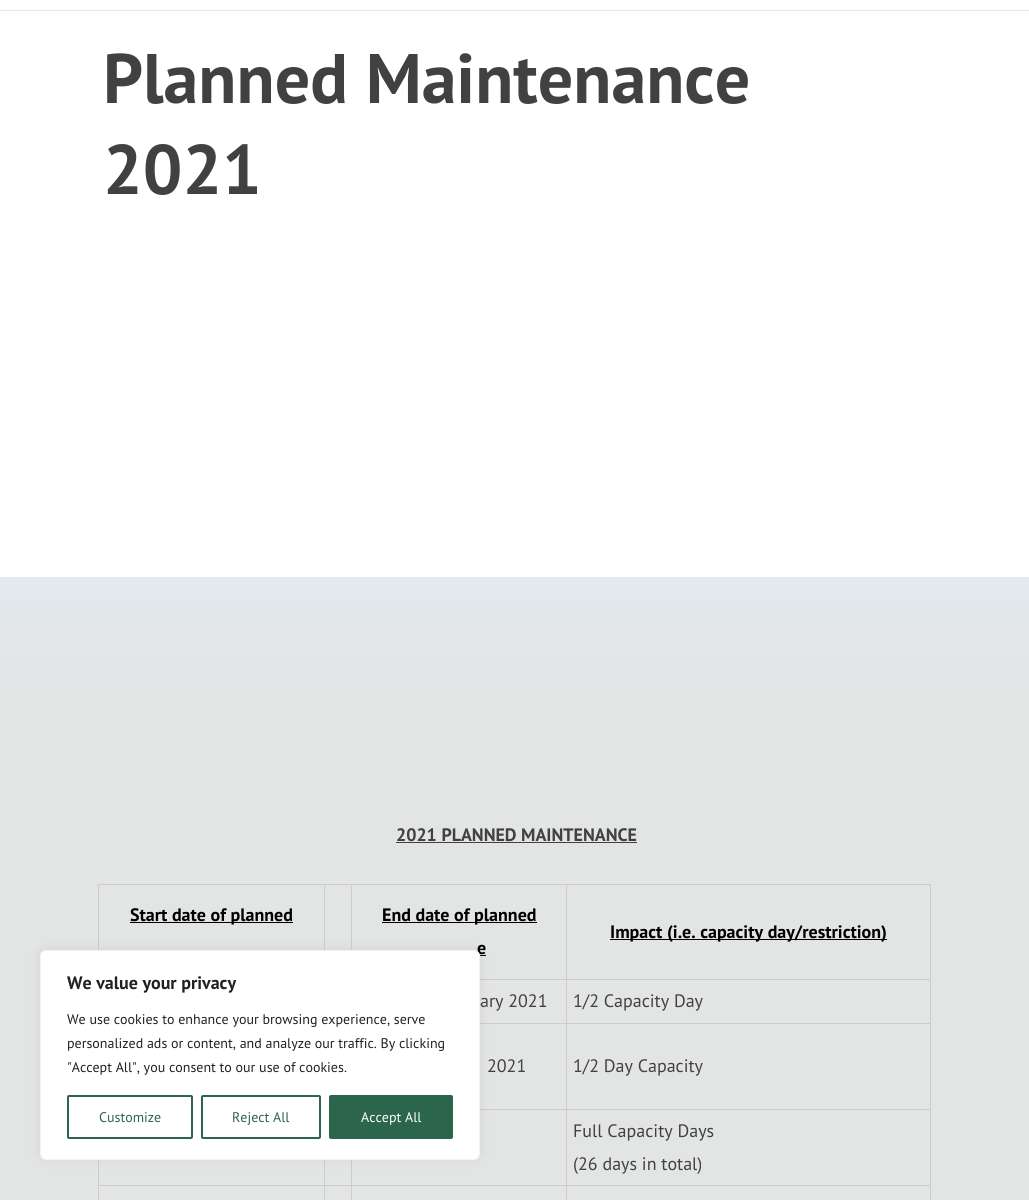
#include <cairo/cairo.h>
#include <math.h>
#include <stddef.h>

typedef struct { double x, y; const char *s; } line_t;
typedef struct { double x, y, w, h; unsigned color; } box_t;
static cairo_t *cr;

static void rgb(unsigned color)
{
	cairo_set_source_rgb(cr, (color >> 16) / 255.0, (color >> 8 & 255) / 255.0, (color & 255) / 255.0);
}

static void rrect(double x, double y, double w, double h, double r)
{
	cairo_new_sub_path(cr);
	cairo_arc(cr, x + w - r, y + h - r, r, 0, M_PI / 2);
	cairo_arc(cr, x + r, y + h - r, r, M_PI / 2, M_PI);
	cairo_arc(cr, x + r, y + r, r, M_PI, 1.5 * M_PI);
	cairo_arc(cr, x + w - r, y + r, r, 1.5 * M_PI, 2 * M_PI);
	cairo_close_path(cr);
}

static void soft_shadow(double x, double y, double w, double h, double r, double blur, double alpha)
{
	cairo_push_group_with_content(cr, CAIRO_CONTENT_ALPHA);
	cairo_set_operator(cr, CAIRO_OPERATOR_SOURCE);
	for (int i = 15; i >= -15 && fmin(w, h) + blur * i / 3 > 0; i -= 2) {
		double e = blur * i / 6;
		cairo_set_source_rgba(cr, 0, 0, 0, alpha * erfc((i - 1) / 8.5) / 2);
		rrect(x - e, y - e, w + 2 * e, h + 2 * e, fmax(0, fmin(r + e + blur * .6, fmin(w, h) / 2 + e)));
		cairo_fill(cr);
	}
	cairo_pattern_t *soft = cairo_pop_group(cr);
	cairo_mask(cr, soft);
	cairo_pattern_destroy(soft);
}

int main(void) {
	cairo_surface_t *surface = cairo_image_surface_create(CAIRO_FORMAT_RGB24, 1029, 1200);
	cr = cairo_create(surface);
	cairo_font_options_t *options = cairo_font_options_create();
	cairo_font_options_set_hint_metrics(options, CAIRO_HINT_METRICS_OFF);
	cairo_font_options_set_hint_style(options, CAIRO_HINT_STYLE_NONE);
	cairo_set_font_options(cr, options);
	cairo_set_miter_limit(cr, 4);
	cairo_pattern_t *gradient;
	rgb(0xffffff);
	cairo_paint(cr);
	rgb(0xe8e8e8);
	cairo_rectangle(cr, 0, 10, 1029, 1);
	cairo_fill(cr);
	gradient = cairo_pattern_create_linear(515, 32, 515, 799);
	cairo_pattern_add_color_stop_rgba(gradient, 0.71, 1, 1, 1, 1);
	cairo_pattern_add_color_stop_rgba(gradient, 0.71, 0.89, 0.914, 0.933, 1);
	cairo_pattern_add_color_stop_rgba(gradient, 0.88, 0.89, 0.898, 0.898, 1);
	cairo_set_source(cr, gradient);
	cairo_pattern_destroy(gradient);
	cairo_rectangle(cr, 0, 577, 1029, 222);
	cairo_fill(cr);
	{
		static const box_t items[] = {
			{0, 799, 1029, 401, 0xe3e5e5},
			{396, 842, 241, 1, 0x414042},
			{566, 884, 365, 1, 0xcccccc},
			{566, 979, 365, 1, 0xcccccc},
			{566, 1023, 365, 1, 0xcccccc},
			{566, 1109, 365, 1, 0xcccccc},
			{566, 1185, 365, 1, 0xcccccc},
			{566, 1185, 1, 15, 0xcccccc},
			{351, 1185, 216, 1, 0xcccccc},
			{566, 1109, 1, 77, 0xcccccc},
			{480, 1109, 87, 1, 0xcccccc},
			{566, 1023, 1, 87, 0xcccccc},
			{480, 1023, 87, 1, 0xcccccc},
			{566, 979, 1, 45, 0xcccccc},
			{480, 979, 87, 1, 0xcccccc},
			{566, 884, 1, 96, 0xcccccc},
			{351, 884, 216, 1, 0xcccccc},
			{351, 884, 1, 66, 0xcccccc},
			{324, 884, 28, 1, 0xcccccc},
			{324, 884, 1, 66, 0xcccccc},
			{98, 884, 227, 1, 0xcccccc},
			{98, 884, 1, 66, 0xcccccc},
			{130, 922, 163, 1, 0x000000},
			{382, 922, 155, 1, 0x000000},
			{479, 955, 7, 1, 0x000000},
			{930, 1185, 1, 15, 0xcccccc},
			{930, 1109, 1, 77, 0xcccccc},
			{930, 1023, 1, 87, 0xcccccc},
			{930, 979, 1, 45, 0xcccccc},
			{930, 884, 1, 96, 0xcccccc},
			{610, 939, 277, 1, 0x000000},
			{351, 1185, 1, 15, 0xcccccc},
			{324, 1185, 28, 1, 0xcccccc},
			{324, 1185, 1, 15, 0xcccccc},
			{98, 1185, 227, 1, 0xcccccc},
			{324, 1160, 1, 26, 0xcccccc},
			{351, 1160, 1, 26, 0xcccccc},
			{98, 1160, 1, 40, 0xcccccc},
		};
		for (size_t i = 0; i < sizeof items / sizeof *items; i++) {
			rgb(items[i].color);
			cairo_rectangle(cr, items[i].x, items[i].y, items[i].w, items[i].h);
			cairo_fill(cr);
		}
	}
	rgb(0xacabab);
	soft_shadow(40, 949, 440, 210, 6, 5, 0.3);
	cairo_select_font_face(cr, "PT Sans", CAIRO_FONT_SLANT_NORMAL, CAIRO_FONT_WEIGHT_BOLD);
	cairo_set_font_size(cr, 70);
	rgb(0x414042);
	cairo_move_to(cr, 103, 103);
	cairo_show_text(cr, "Planned Maintenance");
	cairo_move_to(cr, 103, 194);
	cairo_show_text(cr, "2021");
	cairo_set_font_size(cr, 18);
	cairo_move_to(cr, 396, 841);
	cairo_show_text(cr, "2021 PLANNED MAINTENANCE");
	rgb(0x000000);
	{
		static const line_t items[] = {
			{130, 921, "Start date of planned"},
			{382, 921, "End date of planned"},
			{477, 954, "e"},
			{610, 938, "Impact (i.e. capacity day/restriction)"},
		};
		for (size_t i = 0; i < sizeof items / sizeof *items; i++) {
			cairo_move_to(cr, items[i].x, items[i].y);
			cairo_show_text(cr, items[i].s);
		}
	}
	cairo_select_font_face(cr, "PT Sans", CAIRO_FONT_SLANT_NORMAL, CAIRO_FONT_WEIGHT_NORMAL);
	rgb(0x414042);
	{
		static const line_t items[] = {
			{480, 1007, "ary 2021"},
			{573, 1007, "1/2 Capacity Day"},
			{487, 1072, "2021"},
			{573, 1072, "1/2 Day Capacity"},
			{573, 1137, "Full Capacity Days"},
			{573, 1170, "(26 days in total)"},
		};
		for (size_t i = 0; i < sizeof items / sizeof *items; i++) {
			cairo_move_to(cr, items[i].x, items[i].y);
			cairo_show_text(cr, items[i].s);
		}
	}
	rgb(0xffffff);
	rrect(40.5, 950.5, 439, 209, 5.5);
	cairo_fill_preserve(cr);
	rgb(0xf4f4f4);
	cairo_set_line_width(cr, 1);
	cairo_stroke(cr);
	cairo_select_font_face(cr, "PT Sans", CAIRO_FONT_SLANT_NORMAL, CAIRO_FONT_WEIGHT_BOLD);
	rgb(0x212121);
	cairo_move_to(cr, 67, 989);
	cairo_show_text(cr, "We value your privacy");
	cairo_select_font_face(cr, "PT Sans", CAIRO_FONT_SLANT_NORMAL, CAIRO_FONT_WEIGHT_NORMAL);
	cairo_set_font_size(cr, 14);
	{
		static const line_t items[] = {
			{67, 1024, "We use cookies to enhance your browsing experience, serve"},
			{67, 1048, "personalized ads or content, and analyze our traffic. By clicking"},
			{67, 1072, "\"Accept All\", you consent to our use of cookies."},
		};
		for (size_t i = 0; i < sizeof items / sizeof *items; i++) {
			cairo_move_to(cr, items[i].x, items[i].y);
			cairo_show_text(cr, items[i].s);
		}
	}
	rrect(68, 1096, 124, 42, 1);
	rgb(0x2a654c);
	cairo_set_line_width(cr, 2);
	cairo_stroke(cr);
	cairo_move_to(cr, 99, 1122);
	cairo_show_text(cr, "Customize");
	rrect(202, 1096, 118, 42, 1);
	cairo_stroke(cr);
	cairo_move_to(cr, 232, 1122);
	cairo_show_text(cr, "Reject All");
	rrect(330, 1096, 122, 42, 1);
	cairo_fill_preserve(cr);
	cairo_stroke(cr);
	rgb(0xffffff);
	cairo_move_to(cr, 361, 1122);
	cairo_show_text(cr, "Accept All");
	cairo_surface_write_to_png(surface, "page.png");
	cairo_font_options_destroy(options);
	cairo_destroy(cr);
	cairo_surface_destroy(surface);
	return 0;
}
